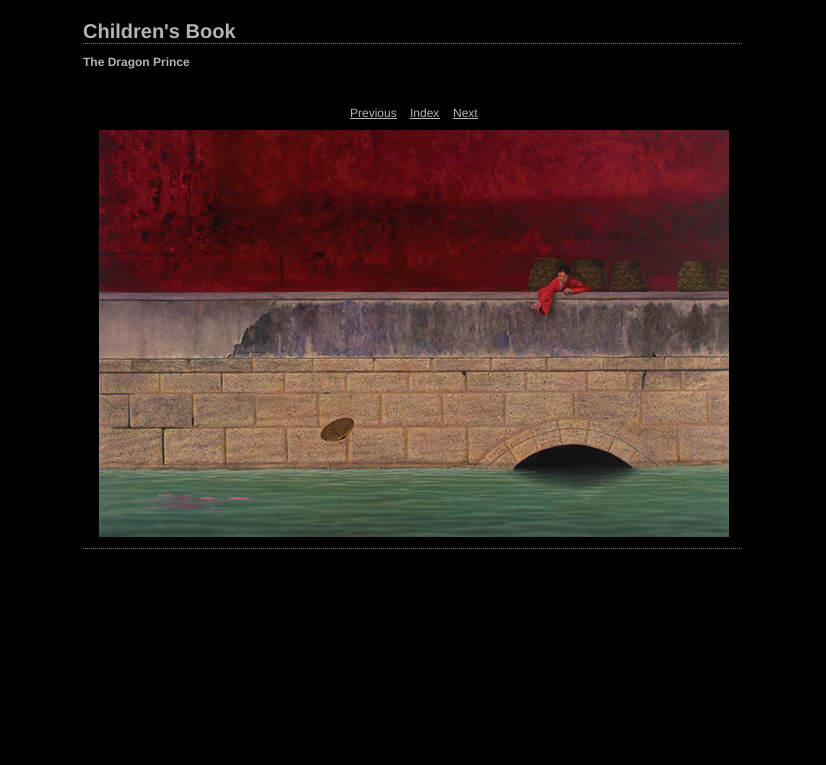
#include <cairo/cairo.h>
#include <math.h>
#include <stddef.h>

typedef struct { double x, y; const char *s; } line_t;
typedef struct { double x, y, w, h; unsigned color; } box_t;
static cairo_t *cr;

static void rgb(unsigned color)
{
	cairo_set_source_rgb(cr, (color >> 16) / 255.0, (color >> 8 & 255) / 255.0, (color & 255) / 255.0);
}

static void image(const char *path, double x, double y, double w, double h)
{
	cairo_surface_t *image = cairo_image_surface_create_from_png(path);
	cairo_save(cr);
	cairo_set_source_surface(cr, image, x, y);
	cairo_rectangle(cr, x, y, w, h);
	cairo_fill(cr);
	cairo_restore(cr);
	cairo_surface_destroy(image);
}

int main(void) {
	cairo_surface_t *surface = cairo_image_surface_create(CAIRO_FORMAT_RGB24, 826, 765);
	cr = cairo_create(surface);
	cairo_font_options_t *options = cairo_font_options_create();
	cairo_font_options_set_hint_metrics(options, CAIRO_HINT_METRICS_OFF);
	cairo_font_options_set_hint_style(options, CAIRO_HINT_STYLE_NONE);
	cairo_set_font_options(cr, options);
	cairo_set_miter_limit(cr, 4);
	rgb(0x000000);
	cairo_paint(cr);
	cairo_new_path(cr);
	cairo_move_to(cr, 83, 43.5);
	cairo_line_to(cr, 743, 43.5);
	rgb(0x7f7f7f);
	cairo_set_line_width(cr, 1);
	cairo_set_dash(cr, (double[]){1, 1}, 2, 0);
	cairo_stroke(cr);
	{
		static const box_t items[] = {
			{350, 118, 47, 1, 0xb3b3b3},
			{410, 118, 30, 1, 0xb3b3b3},
			{453, 118, 25, 1, 0xb3b3b3},
		};
		for (size_t i = 0; i < sizeof items / sizeof *items; i++) {
			rgb(items[i].color);
			cairo_rectangle(cr, items[i].x, items[i].y, items[i].w, items[i].h);
			cairo_fill(cr);
		}
	}
	image("img/1.png", 99, 130, 630, 407);
	cairo_new_path(cr);
	cairo_move_to(cr, 83, 548.5);
	cairo_line_to(cr, 743, 548.5);
	rgb(0x7f7f7f);
	cairo_stroke(cr);
	cairo_select_font_face(cr, "Liberation Sans", CAIRO_FONT_SLANT_NORMAL, CAIRO_FONT_WEIGHT_BOLD);
	cairo_set_font_size(cr, 20);
	rgb(0xb3b3b3);
	cairo_move_to(cr, 83, 38);
	cairo_show_text(cr, "Children's Book");
	cairo_set_font_size(cr, 12);
	cairo_move_to(cr, 83, 66);
	cairo_show_text(cr, "The Dragon Prince");
	cairo_select_font_face(cr, "Liberation Sans", CAIRO_FONT_SLANT_NORMAL, CAIRO_FONT_WEIGHT_NORMAL);
	{
		static const line_t items[] = {
			{350, 117, "Previous"},
			{410, 117, "Index"},
			{453, 117, "Next"},
		};
		for (size_t i = 0; i < sizeof items / sizeof *items; i++) {
			cairo_move_to(cr, items[i].x, items[i].y);
			cairo_show_text(cr, items[i].s);
		}
	}
	cairo_surface_write_to_png(surface, "page.png");
	cairo_font_options_destroy(options);
	cairo_destroy(cr);
	cairo_surface_destroy(surface);
	return 0;
}
